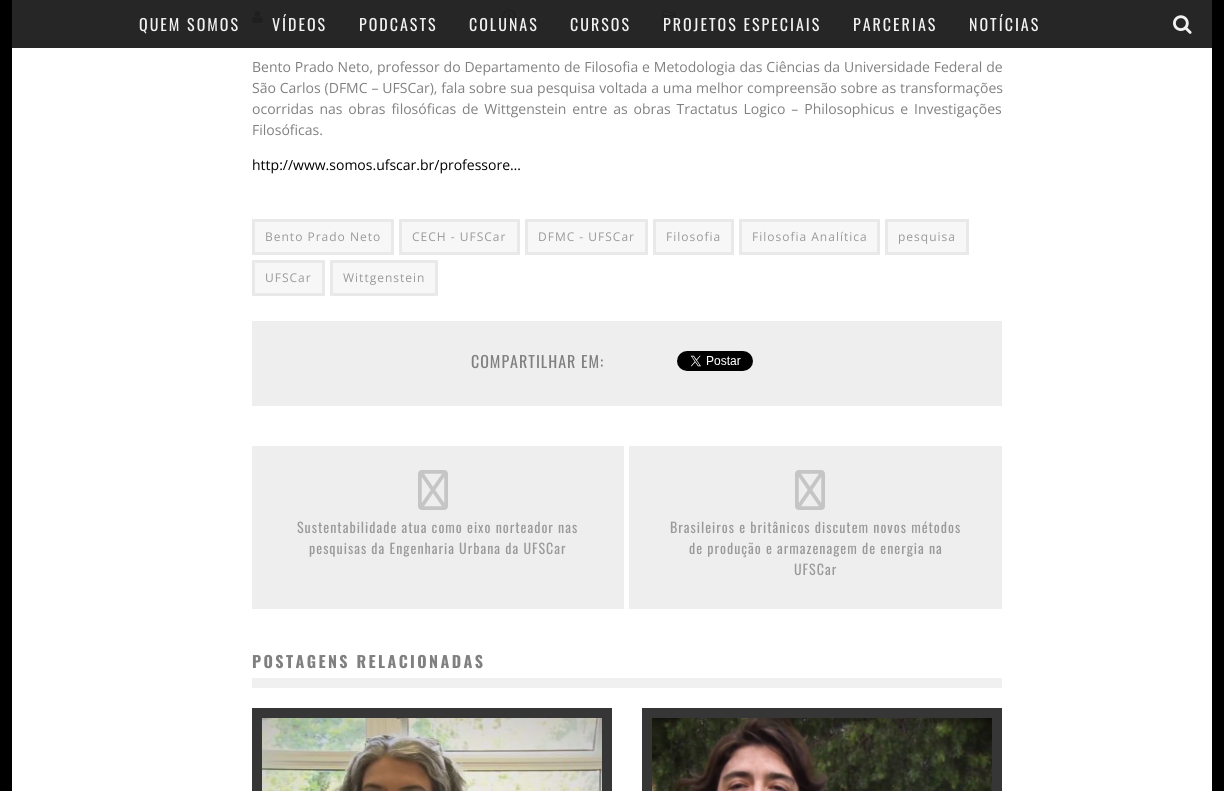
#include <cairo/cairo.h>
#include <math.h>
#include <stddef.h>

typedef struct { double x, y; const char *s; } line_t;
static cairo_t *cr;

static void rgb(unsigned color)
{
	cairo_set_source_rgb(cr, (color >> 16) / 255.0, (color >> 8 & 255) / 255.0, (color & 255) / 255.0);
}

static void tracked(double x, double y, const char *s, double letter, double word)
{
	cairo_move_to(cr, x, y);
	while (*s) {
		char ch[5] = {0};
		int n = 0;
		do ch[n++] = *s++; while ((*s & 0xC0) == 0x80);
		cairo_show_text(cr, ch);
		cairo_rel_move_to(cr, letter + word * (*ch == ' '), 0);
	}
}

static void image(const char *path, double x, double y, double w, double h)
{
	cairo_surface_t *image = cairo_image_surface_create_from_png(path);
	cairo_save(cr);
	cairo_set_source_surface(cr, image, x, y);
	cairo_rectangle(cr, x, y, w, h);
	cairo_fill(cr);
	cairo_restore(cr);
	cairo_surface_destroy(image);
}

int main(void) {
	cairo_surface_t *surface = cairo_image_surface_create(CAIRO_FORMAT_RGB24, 1224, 791);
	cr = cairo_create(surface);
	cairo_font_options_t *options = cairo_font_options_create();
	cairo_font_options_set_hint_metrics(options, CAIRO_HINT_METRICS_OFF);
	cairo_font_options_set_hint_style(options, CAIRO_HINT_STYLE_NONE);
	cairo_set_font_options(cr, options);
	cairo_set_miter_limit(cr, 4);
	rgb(0x000000);
	cairo_paint(cr);
	rgb(0x262626);
	cairo_rectangle(cr, 12, 0, 1200, 48);
	cairo_fill(cr);
	image("img/1.png", 1173, 15, 19, 19);
	rgb(0xffffff);
	cairo_rectangle(cr, 12, 48, 1200, 743);
	cairo_fill(cr);
	image("img/2.png", 252, 11, 11, 12);
	image("img/3.png", 502, 9, 14, 15);
	image("img/4.png", 662, 10, 14, 13);
	rgb(0xf7f7f7);
	cairo_rectangle(cr, 253.5, 220.5, 139, 33);
	cairo_fill_preserve(cr);
	rgb(0xe9e9e9);
	cairo_set_line_width(cr, 3);
	cairo_stroke(cr);
	rgb(0xf7f7f7);
	cairo_rectangle(cr, 400.5, 220.5, 118, 33);
	cairo_fill_preserve(cr);
	rgb(0xe9e9e9);
	cairo_stroke(cr);
	rgb(0xf7f7f7);
	cairo_rectangle(cr, 526.5, 220.5, 120, 33);
	cairo_fill_preserve(cr);
	rgb(0xe9e9e9);
	cairo_stroke(cr);
	rgb(0xf7f7f7);
	cairo_rectangle(cr, 654.5, 220.5, 78, 33);
	cairo_fill_preserve(cr);
	rgb(0xe9e9e9);
	cairo_stroke(cr);
	rgb(0xf7f7f7);
	cairo_rectangle(cr, 740.5, 220.5, 138, 33);
	cairo_fill_preserve(cr);
	rgb(0xe9e9e9);
	cairo_stroke(cr);
	rgb(0xf7f7f7);
	cairo_rectangle(cr, 886.5, 220.5, 81, 33);
	cairo_fill_preserve(cr);
	rgb(0xe9e9e9);
	cairo_stroke(cr);
	rgb(0xf7f7f7);
	cairo_rectangle(cr, 253.5, 261.5, 70, 33);
	cairo_fill_preserve(cr);
	rgb(0xe9e9e9);
	cairo_stroke(cr);
	rgb(0xf7f7f7);
	cairo_rectangle(cr, 331.5, 261.5, 105, 33);
	cairo_fill_preserve(cr);
	rgb(0xe9e9e9);
	cairo_stroke(cr);
	rgb(0xeeeeee);
	cairo_rectangle(cr, 252, 321, 750, 85);
	cairo_fill(cr);
	image("img/5.png", 677, 351, 76, 20);
	cairo_rectangle(cr, 252, 446, 750, 163);
	cairo_fill(cr);
	rgb(0xffffff);
	cairo_rectangle(cr, 624, 446, 5, 163);
	cairo_fill(cr);
	image("img/6.png", 418, 470, 30, 40);
	image("img/6.png", 795, 470, 30, 40);
	rgb(0xf0f0f0);
	cairo_rectangle(cr, 252, 678, 750, 10);
	cairo_fill(cr);
	rgb(0x363636);
	cairo_rectangle(cr, 252, 708, 360, 83);
	cairo_fill(cr);
	image("img/7.png", 262, 718, 340, 73);
	cairo_rectangle(cr, 642, 708, 360, 83);
	cairo_fill(cr);
	image("img/8.png", 652, 718, 340, 73);
	cairo_select_font_face(cr, "Oswald", CAIRO_FONT_SLANT_NORMAL, CAIRO_FONT_WEIGHT_NORMAL);
	cairo_set_font_size(cr, 16);
	rgb(0xf2f2f2);
	{
		static const line_t items[] = {
			{139, 31, "QUEM SOMOS"},
			{272, 31, "VÍDEOS"},
			{359, 31, "PODCASTS"},
			{469, 31, "COLUNAS"},
			{570, 31, "CURSOS"},
			{663, 31, "PROJETOS ESPECIAIS"},
			{853, 31, "PARCERIAS"},
			{969, 31, "NOTÍCIAS"},
		};
		for (size_t i = 0; i < sizeof items / sizeof *items; i++) {
			tracked(items[i].x, items[i].y, items[i].s, 2, 0);
		}
	}
	cairo_select_font_face(cr, "Open Sans", CAIRO_FONT_SLANT_NORMAL, CAIRO_FONT_WEIGHT_NORMAL);
	cairo_set_font_size(cr, 14);
	rgb(0x808080);
	tracked(252, 72, "Bento Prado Neto, professor do Departamento de Filosofia e Metodologia das Ciências da Universidade Federal de", 0, 0.25);
	tracked(252, 93, "São Carlos (DFMC – UFSCar), fala sobre sua pesquisa voltada a uma melhor compreensão sobre as transformações", 0, 0.25);
	tracked(252, 114, "ocorridas nas obras filosóficas de Wittgenstein entre as obras Tractatus Logico – Philosophicus e Investigações", 0, 2.25);
	cairo_move_to(cr, 252, 135);
	cairo_show_text(cr, "Filosóficas.");
	rgb(0x000000);
	cairo_move_to(cr, 252, 170);
	cairo_show_text(cr, "http://www.somos.ufscar.br/professore…");
	cairo_set_font_size(cr, 12);
	rgb(0x999999);
	{
		static const line_t items[] = {
			{265, 241, "Bento Prado Neto"},
			{412, 241, "CECH - UFSCar"},
			{538, 241, "DFMC - UFSCar"},
			{666, 241, "Filosofia"},
			{752, 241, "Filosofia Analítica"},
			{898, 241, "pesquisa"},
			{265, 282, "UFSCar"},
			{343, 282, "Wittgenstein"},
		};
		for (size_t i = 0; i < sizeof items / sizeof *items; i++) {
			tracked(items[i].x, items[i].y, items[i].s, 1, 0);
		}
	}
	cairo_select_font_face(cr, "Oswald", CAIRO_FONT_SLANT_NORMAL, CAIRO_FONT_WEIGHT_NORMAL);
	cairo_set_font_size(cr, 16);
	rgb(0x808080);
	tracked(471, 368, "COMPARTILHAR EM:", 1, 0);
	cairo_set_font_size(cr, 14);
	rgb(0x999999);
	{
		static const line_t items[] = {
			{297, 533, "Sustentabilidade atua como eixo norteador nas"},
			{309, 554, "pesquisas da Engenharia Urbana da UFSCar"},
			{670, 533, "Brasileiros e britânicos discutem novos métodos"},
			{689, 554, "de produção e armazenagem de energia na"},
			{794, 575, "UFSCar"},
		};
		for (size_t i = 0; i < sizeof items / sizeof *items; i++) {
			tracked(items[i].x, items[i].y, items[i].s, 1, 0);
		}
	}
	cairo_select_font_face(cr, "Oswald", CAIRO_FONT_SLANT_NORMAL, CAIRO_FONT_WEIGHT_BOLD);
	cairo_set_font_size(cr, 16);
	rgb(0x808080);
	tracked(252, 668, "POSTAGENS RELACIONADAS", 2.4, 0);
	cairo_surface_write_to_png(surface, "page.png");
	cairo_font_options_destroy(options);
	cairo_destroy(cr);
	cairo_surface_destroy(surface);
	return 0;
}
